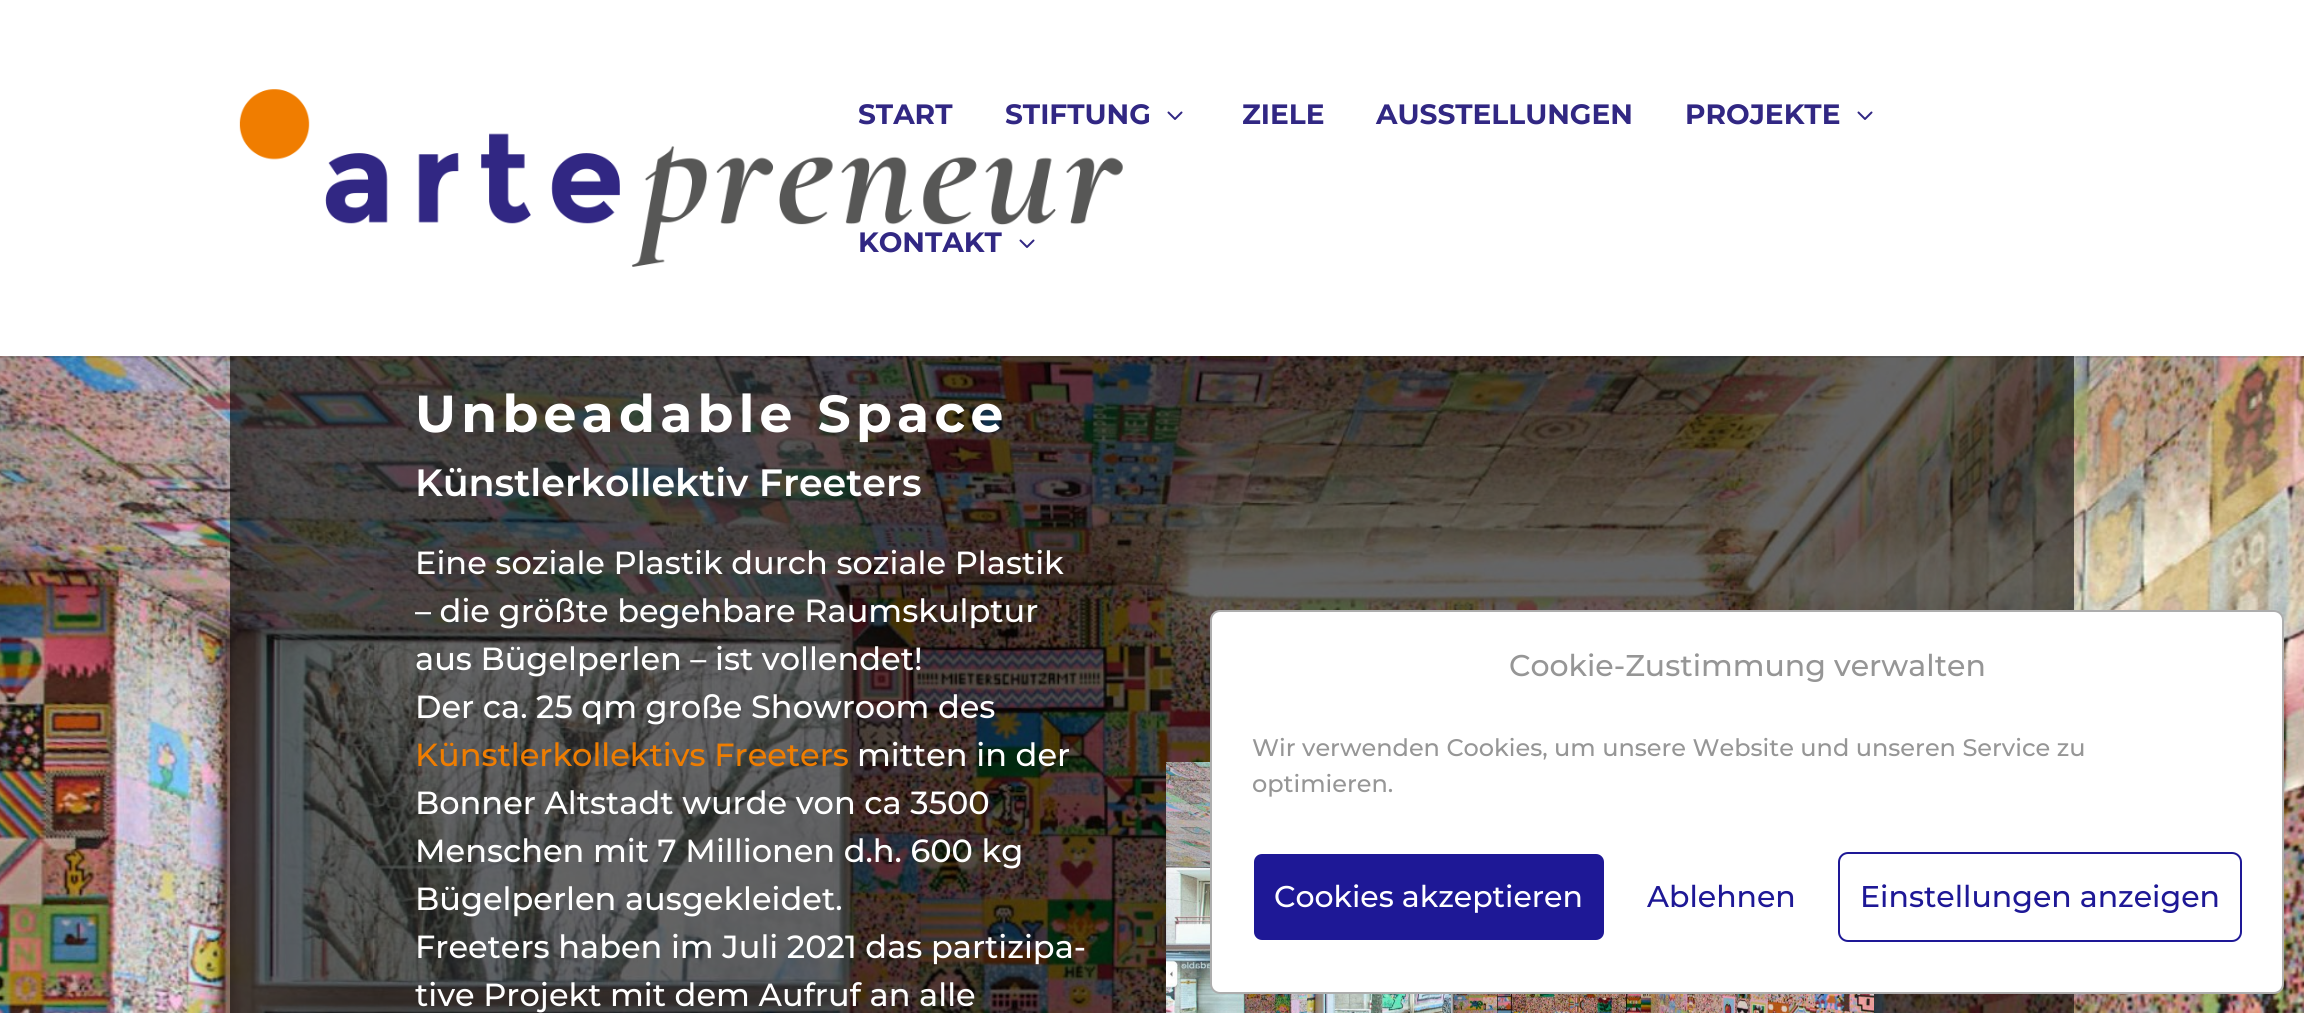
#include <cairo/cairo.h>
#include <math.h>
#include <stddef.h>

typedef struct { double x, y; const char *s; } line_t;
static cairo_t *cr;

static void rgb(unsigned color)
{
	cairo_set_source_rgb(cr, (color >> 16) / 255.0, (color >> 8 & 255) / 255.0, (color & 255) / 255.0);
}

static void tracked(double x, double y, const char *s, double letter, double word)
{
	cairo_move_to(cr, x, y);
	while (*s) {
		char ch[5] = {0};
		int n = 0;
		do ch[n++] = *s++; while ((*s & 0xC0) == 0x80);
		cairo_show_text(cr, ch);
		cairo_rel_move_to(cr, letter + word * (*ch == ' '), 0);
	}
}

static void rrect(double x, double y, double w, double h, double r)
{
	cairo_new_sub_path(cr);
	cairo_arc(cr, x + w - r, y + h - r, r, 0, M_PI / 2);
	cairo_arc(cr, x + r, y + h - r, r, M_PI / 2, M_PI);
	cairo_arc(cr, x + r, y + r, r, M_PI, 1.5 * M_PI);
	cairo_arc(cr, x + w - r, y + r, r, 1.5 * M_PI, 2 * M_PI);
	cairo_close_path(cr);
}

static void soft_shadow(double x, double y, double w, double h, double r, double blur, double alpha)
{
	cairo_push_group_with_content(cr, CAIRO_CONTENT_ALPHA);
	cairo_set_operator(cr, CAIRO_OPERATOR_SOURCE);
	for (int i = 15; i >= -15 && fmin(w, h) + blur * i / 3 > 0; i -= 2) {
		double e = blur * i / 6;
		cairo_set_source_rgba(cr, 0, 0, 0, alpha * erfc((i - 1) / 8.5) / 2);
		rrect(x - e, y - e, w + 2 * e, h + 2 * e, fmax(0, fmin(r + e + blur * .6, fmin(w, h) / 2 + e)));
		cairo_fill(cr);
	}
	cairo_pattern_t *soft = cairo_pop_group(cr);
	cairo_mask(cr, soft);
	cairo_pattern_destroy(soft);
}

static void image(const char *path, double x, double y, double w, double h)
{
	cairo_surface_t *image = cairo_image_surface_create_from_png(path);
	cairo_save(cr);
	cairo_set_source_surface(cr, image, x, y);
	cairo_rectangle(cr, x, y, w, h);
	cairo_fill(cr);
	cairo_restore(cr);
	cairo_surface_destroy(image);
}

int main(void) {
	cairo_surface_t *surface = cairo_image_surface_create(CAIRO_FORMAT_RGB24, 2304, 1013);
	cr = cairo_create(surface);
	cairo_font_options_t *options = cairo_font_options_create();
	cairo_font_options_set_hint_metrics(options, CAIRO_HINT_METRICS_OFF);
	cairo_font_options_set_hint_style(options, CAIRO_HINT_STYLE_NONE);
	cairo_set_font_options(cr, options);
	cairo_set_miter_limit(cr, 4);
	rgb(0xffffff);
	cairo_paint(cr);
	image("img/3.png", 0, 356, 2304, 657);
	cairo_set_source_rgba(cr, 0, 0, 0, 0.6);
	cairo_rectangle(cr, 230, 356, 1844, 657);
	cairo_fill(cr);
	cairo_set_source_rgba(cr, 0, 0, 0, 0.1);
	cairo_rectangle(cr, 0, 356, 2304, 2);
	cairo_fill(cr);
	image("img/1.png", 239, 89, 884, 178);
	image("img/2.png", 1167, 111, 16, 9);
	image("img/2.png", 1857, 111, 16, 9);
	image("img/2.png", 1019, 239, 16, 9);
	rgb(0x000000);
	soft_shadow(1178, 798, 684, 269, 0, 18, 0.3);
	image("img/4.png", 1166, 762, 708, 251);
	rgb(0xffffff);
	rrect(1211, 611, 1072, 382, 9);
	cairo_fill_preserve(cr);
	rgb(0xadadad);
	cairo_stroke(cr);
	rgb(0x1e1896);
	rrect(1253, 853, 352, 88, 9);
	cairo_fill_preserve(cr);
	rgb(0xffffff);
	cairo_stroke(cr);
	rrect(1839, 853, 402, 88, 9);
	rgb(0x1e1896);
	cairo_stroke(cr);
	cairo_select_font_face(cr, "Montserrat", CAIRO_FONT_SLANT_NORMAL, CAIRO_FONT_WEIGHT_BOLD);
	cairo_set_font_size(cr, 28);
	rgb(0x312783);
	{
		static const line_t items[] = {
			{858, 124, "START"},
			{1005, 124, "STIFTUNG"},
			{1242, 124, "ZIELE"},
			{1376, 124, "AUSSTELLUNGEN"},
			{1685, 124, "PROJEKTE"},
			{858, 252, "KONTAKT"},
		};
		for (size_t i = 0; i < sizeof items / sizeof *items; i++) {
			cairo_move_to(cr, items[i].x, items[i].y);
			cairo_show_text(cr, items[i].s);
		}
	}
	cairo_set_font_size(cr, 52);
	rgb(0xffffff);
	tracked(415, 432, "Unbeadable Space", 5.25, 0);
	cairo_select_font_face(cr, "Montserrat SemiBold", CAIRO_FONT_SLANT_NORMAL, CAIRO_FONT_WEIGHT_NORMAL);
	cairo_set_font_size(cr, 38);
	cairo_move_to(cr, 415, 496);
	cairo_show_text(cr, "Künstlerkollektiv Freeters");
	cairo_select_font_face(cr, "Montserrat Medium", CAIRO_FONT_SLANT_NORMAL, CAIRO_FONT_WEIGHT_NORMAL);
	cairo_set_font_size(cr, 32);
	{
		static const line_t items[] = {
			{415, 574, "Eine soziale Plastik durch soziale Plastik"},
			{415, 622, "– die größte begehbare Raumskulptur"},
			{415, 670, "aus Bügelperlen – ist vollendet!"},
			{415, 718, "Der ca. 25 qm große Showroom des"},
		};
		for (size_t i = 0; i < sizeof items / sizeof *items; i++) {
			cairo_move_to(cr, items[i].x, items[i].y);
			cairo_show_text(cr, items[i].s);
		}
	}
	rgb(0xef7d00);
	cairo_move_to(cr, 415, 766);
	cairo_show_text(cr, "Künstlerkollektivs Freeters");
	rgb(0xffffff);
	{
		static const line_t items[] = {
			{857, 766, "mitten in der"},
			{415, 814, "Bonner Altstadt wurde von ca 3500"},
			{415, 862, "Menschen mit 7 Millionen d.h. 600 kg"},
			{415, 910, "Bügelperlen ausgekleidet."},
			{415, 958, "Freeters haben im Juli 2021 das partizipa-"},
			{415, 1006, "tive Projekt mit dem Aufruf an alle"},
		};
		for (size_t i = 0; i < sizeof items / sizeof *items; i++) {
			cairo_move_to(cr, items[i].x, items[i].y);
			cairo_show_text(cr, items[i].s);
		}
	}
	cairo_set_font_size(cr, 30);
	rgb(0x969696);
	cairo_move_to(cr, 1509, 676);
	cairo_show_text(cr, "Cookie-Zustimmung verwalten");
	cairo_set_font_size(cr, 24);
	cairo_move_to(cr, 1252, 756);
	cairo_show_text(cr, "Wir verwenden Cookies, um unsere Website und unseren Service zu");
	cairo_move_to(cr, 1252, 792);
	cairo_show_text(cr, "optimieren.");
	cairo_set_font_size(cr, 30);
	rgb(0xffffff);
	cairo_move_to(cr, 1274, 907);
	cairo_show_text(cr, "Cookies akzeptieren");
	rgb(0x1e1896);
	cairo_move_to(cr, 1647, 907);
	cairo_show_text(cr, "Ablehnen");
	cairo_move_to(cr, 1860, 907);
	cairo_show_text(cr, "Einstellungen anzeigen");
	cairo_surface_write_to_png(surface, "page.png");
	cairo_font_options_destroy(options);
	cairo_destroy(cr);
	cairo_surface_destroy(surface);
	return 0;
}
